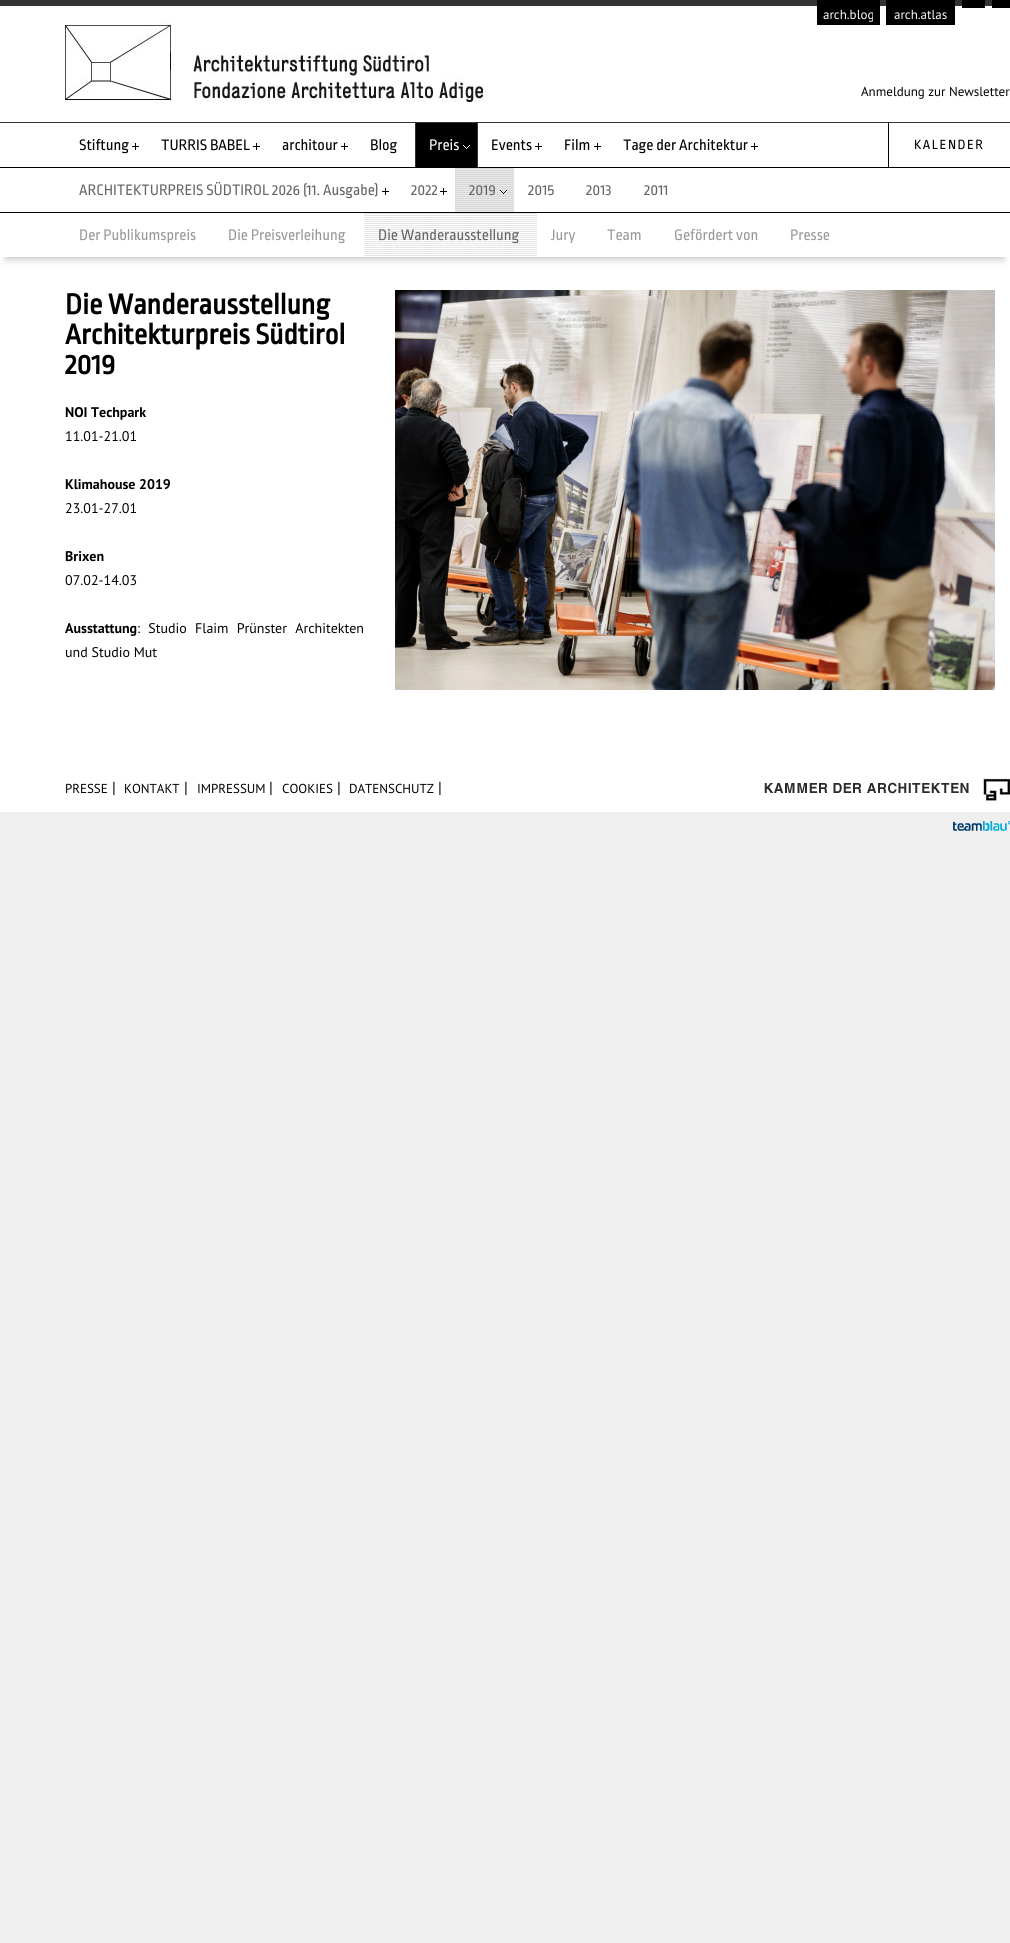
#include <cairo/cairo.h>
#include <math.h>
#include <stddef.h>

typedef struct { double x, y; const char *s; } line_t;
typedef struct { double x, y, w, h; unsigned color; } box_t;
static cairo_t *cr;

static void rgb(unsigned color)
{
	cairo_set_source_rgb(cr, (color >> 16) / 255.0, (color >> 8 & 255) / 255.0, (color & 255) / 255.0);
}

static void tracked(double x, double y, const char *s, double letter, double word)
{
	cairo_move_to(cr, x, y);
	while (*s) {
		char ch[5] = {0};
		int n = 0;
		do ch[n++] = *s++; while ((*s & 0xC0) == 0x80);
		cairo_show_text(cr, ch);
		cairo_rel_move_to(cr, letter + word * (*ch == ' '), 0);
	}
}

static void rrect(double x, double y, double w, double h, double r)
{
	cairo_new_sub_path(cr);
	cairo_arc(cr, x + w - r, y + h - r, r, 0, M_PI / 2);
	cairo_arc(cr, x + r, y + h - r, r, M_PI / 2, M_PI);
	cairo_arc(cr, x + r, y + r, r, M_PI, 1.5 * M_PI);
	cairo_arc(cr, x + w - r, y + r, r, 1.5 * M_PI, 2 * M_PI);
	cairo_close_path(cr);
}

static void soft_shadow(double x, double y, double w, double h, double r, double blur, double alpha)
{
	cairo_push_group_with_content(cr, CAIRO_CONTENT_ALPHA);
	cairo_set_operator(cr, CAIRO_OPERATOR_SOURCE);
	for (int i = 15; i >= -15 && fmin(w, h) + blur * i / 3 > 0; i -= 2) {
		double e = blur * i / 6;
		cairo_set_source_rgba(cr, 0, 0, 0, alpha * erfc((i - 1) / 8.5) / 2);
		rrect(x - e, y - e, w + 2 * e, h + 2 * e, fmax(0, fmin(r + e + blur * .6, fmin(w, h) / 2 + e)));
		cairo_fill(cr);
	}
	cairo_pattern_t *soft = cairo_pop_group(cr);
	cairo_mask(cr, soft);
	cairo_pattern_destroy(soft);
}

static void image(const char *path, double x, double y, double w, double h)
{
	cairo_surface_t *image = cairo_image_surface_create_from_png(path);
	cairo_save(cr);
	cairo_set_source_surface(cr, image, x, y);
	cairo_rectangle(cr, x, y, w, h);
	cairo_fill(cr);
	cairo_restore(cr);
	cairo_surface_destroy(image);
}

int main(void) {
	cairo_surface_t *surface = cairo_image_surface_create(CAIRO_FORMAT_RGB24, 1010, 1943);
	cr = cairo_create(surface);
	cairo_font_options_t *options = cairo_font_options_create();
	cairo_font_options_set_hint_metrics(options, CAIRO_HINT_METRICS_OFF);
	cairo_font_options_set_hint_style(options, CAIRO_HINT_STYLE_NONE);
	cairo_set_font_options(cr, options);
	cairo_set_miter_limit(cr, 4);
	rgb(0xefefef);
	cairo_paint(cr);
	{
		static const box_t items[] = {
			{0, 0, 992, 6, 0x333333},
			{0, 6, 1010, 116, 0xffffff},
			{962, 0, 23, 8, 0x000000},
			{992, 0, 18, 8, 0x000000},
			{817, 0, 63, 25, 0x000000},
			{886, 0, 69, 25, 0x000000},
			{0, 122, 1010, 1, 0x333333},
		};
		for (size_t i = 0; i < sizeof items / sizeof *items; i++) {
			rgb(items[i].color);
			cairo_rectangle(cr, items[i].x, items[i].y, items[i].w, items[i].h);
			cairo_fill(cr);
		}
	}
	image("img/1.png", 65, 22, 424, 80);
	rgb(0xffffff);
	cairo_rectangle(cr, 0, 123, 1010, 44);
	cairo_fill(cr);
	image("img/2.png", 132, 143, 7, 7);
	rgb(0x000000);
	cairo_rectangle(cr, 416, 123, 61, 44);
	cairo_fill(cr);
	image("img/3.png", 463, 145, 7, 4);
	{
		static const box_t items[] = {
			{477, 123, 1, 44, 0x333333},
			{415, 123, 1, 44, 0x333333},
			{0, 168, 1010, 44, 0xffffff},
			{0, 167, 1010, 1, 0x000000},
		};
		for (size_t i = 0; i < sizeof items / sizeof *items; i++) {
			rgb(items[i].color);
			cairo_rectangle(cr, items[i].x, items[i].y, items[i].w, items[i].h);
			cairo_fill(cr);
		}
	}
	image("img/2.png", 382, 188, 7, 7);
	image("img/4.png", 455, 168, 59, 44);
	image("img/5.png", 500, 190, 7, 4);
	rgb(0xffffff);
	cairo_rectangle(cr, 0, 257, 1010, 555);
	cairo_fill(cr);
	rgb(0x000000);
	soft_shadow(6, 227, 998, 33, 0, 3.5, 0.2);
	rgb(0xffffff);
	cairo_rectangle(cr, 0, 213, 1010, 44);
	cairo_fill(cr);
	rgb(0x000000);
	cairo_rectangle(cr, 0, 212, 1010, 1);
	cairo_fill(cr);
	image("img/6.png", 364, 213, 173, 43);
	image("img/2.png", 440, 188, 7, 7);
	image("img/2.png", 253, 143, 7, 7);
	image("img/2.png", 341, 143, 7, 7);
	image("img/2.png", 535, 143, 7, 7);
	image("img/2.png", 594, 143, 7, 7);
	image("img/2.png", 751, 143, 7, 7);
	cairo_rectangle(cr, 888, 123, 1, 44);
	cairo_fill(cr);
	image("img/7.png", 395, 290, 600, 400);
	image("img/8.png", 764, 778, 246, 23);
	image("img/9.png", 953, 821, 57, 10);
	cairo_select_font_face(cr, "PT Sans", CAIRO_FONT_SLANT_NORMAL, CAIRO_FONT_WEIGHT_NORMAL);
	cairo_set_font_size(cr, 13);
	rgb(0xffffff);
	cairo_move_to(cr, 823, 19);
	cairo_show_text(cr, "arch.blog");
	cairo_move_to(cr, 894, 19);
	cairo_show_text(cr, "arch.atlas");
	rgb(0x000000);
	cairo_move_to(cr, 861, 96);
	cairo_show_text(cr, "Anmeldung zur Newsletter");
	cairo_select_font_face(cr, "Ropa Sans", CAIRO_FONT_SLANT_NORMAL, CAIRO_FONT_WEIGHT_NORMAL);
	cairo_set_font_size(cr, 16);
	cairo_move_to(cr, 79, 150);
	cairo_show_text(cr, "Stiftung");
	rgb(0xffffff);
	cairo_move_to(cr, 429, 150);
	cairo_show_text(cr, "Preis");
	rgb(0x666666);
	cairo_move_to(cr, 79, 195);
	cairo_show_text(cr, "ARCHITEKTURPREIS SÜDTIROL 2026 (11. Ausgabe)");
	cairo_move_to(cr, 469, 195);
	cairo_show_text(cr, "2019");
	rgb(0x999999);
	cairo_move_to(cr, 79, 240);
	cairo_show_text(cr, "Der Publikumspreis");
	cairo_move_to(cr, 228, 240);
	cairo_show_text(cr, "Die Preisverleihung");
	rgb(0x666666);
	cairo_move_to(cr, 378, 240);
	cairo_show_text(cr, "Die Wanderausstellung");
	rgb(0x999999);
	{
		static const line_t items[] = {
			{551, 240, "Jury"},
			{607, 240, "Team"},
			{674, 240, "Gefördert von"},
			{790, 240, "Presse"},
		};
		for (size_t i = 0; i < sizeof items / sizeof *items; i++) {
			cairo_move_to(cr, items[i].x, items[i].y);
			cairo_show_text(cr, items[i].s);
		}
	}
	rgb(0x666666);
	{
		static const line_t items[] = {
			{411, 195, "2022"},
			{528, 195, "2015"},
			{586, 195, "2013"},
			{644, 195, "2011"},
		};
		for (size_t i = 0; i < sizeof items / sizeof *items; i++) {
			cairo_move_to(cr, items[i].x, items[i].y);
			cairo_show_text(cr, items[i].s);
		}
	}
	rgb(0x000000);
	{
		static const line_t items[] = {
			{161, 150, "TURRIS BABEL"},
			{282, 150, "architour"},
			{370, 150, "Blog"},
			{491, 150, "Events"},
			{564, 150, "Film"},
			{623, 150, "Tage der Architektur"},
		};
		for (size_t i = 0; i < sizeof items / sizeof *items; i++) {
			cairo_move_to(cr, items[i].x, items[i].y);
			cairo_show_text(cr, items[i].s);
		}
	}
	cairo_set_font_size(cr, 14);
	tracked(914, 149, "KALENDER", 1.5, 0);
	cairo_select_font_face(cr, "Ropa Sans", CAIRO_FONT_SLANT_NORMAL, CAIRO_FONT_WEIGHT_BOLD);
	cairo_set_font_size(cr, 30);
	{
		static const line_t items[] = {
			{65, 314, "Die Wanderausstellung"},
			{65, 344, "Architekturpreis Südtirol"},
			{65, 374, "2019"},
		};
		for (size_t i = 0; i < sizeof items / sizeof *items; i++) {
			cairo_move_to(cr, items[i].x, items[i].y);
			cairo_show_text(cr, items[i].s);
		}
	}
	cairo_select_font_face(cr, "PT Sans", CAIRO_FONT_SLANT_NORMAL, CAIRO_FONT_WEIGHT_BOLD);
	cairo_set_font_size(cr, 14);
	cairo_move_to(cr, 65, 417);
	cairo_show_text(cr, "NOI Techpark");
	cairo_select_font_face(cr, "PT Sans", CAIRO_FONT_SLANT_NORMAL, CAIRO_FONT_WEIGHT_NORMAL);
	cairo_move_to(cr, 65, 441);
	cairo_show_text(cr, "11.01-21.01");
	cairo_select_font_face(cr, "PT Sans", CAIRO_FONT_SLANT_NORMAL, CAIRO_FONT_WEIGHT_BOLD);
	cairo_move_to(cr, 65, 489);
	cairo_show_text(cr, "Klimahouse 2019");
	cairo_select_font_face(cr, "PT Sans", CAIRO_FONT_SLANT_NORMAL, CAIRO_FONT_WEIGHT_NORMAL);
	cairo_move_to(cr, 65, 513);
	cairo_show_text(cr, "23.01-27.01");
	cairo_select_font_face(cr, "PT Sans", CAIRO_FONT_SLANT_NORMAL, CAIRO_FONT_WEIGHT_BOLD);
	cairo_move_to(cr, 65, 561);
	cairo_show_text(cr, "Brixen");
	cairo_select_font_face(cr, "PT Sans", CAIRO_FONT_SLANT_NORMAL, CAIRO_FONT_WEIGHT_NORMAL);
	cairo_move_to(cr, 65, 585);
	cairo_show_text(cr, "07.02-14.03");
	cairo_select_font_face(cr, "PT Sans", CAIRO_FONT_SLANT_NORMAL, CAIRO_FONT_WEIGHT_BOLD);
	cairo_move_to(cr, 65, 633);
	cairo_show_text(cr, "Ausstattung");
	cairo_select_font_face(cr, "PT Sans", CAIRO_FONT_SLANT_NORMAL, CAIRO_FONT_WEIGHT_NORMAL);
	tracked(137, 633, ": Studio Flaim Prünster Architekten", 0, 4.5);
	cairo_move_to(cr, 65, 657);
	cairo_show_text(cr, "und Studio Mut");
	cairo_set_font_size(cr, 13);
	cairo_move_to(cr, 65, 793);
	cairo_show_text(cr, "PRESSE");
	cairo_set_font_size(cr, 16);
	cairo_move_to(cr, 112, 793);
	cairo_show_text(cr, "|");
	cairo_set_font_size(cr, 13);
	cairo_move_to(cr, 124, 793);
	cairo_show_text(cr, "KONTAKT");
	cairo_set_font_size(cr, 16);
	cairo_move_to(cr, 184, 793);
	cairo_show_text(cr, "|");
	cairo_set_font_size(cr, 13);
	cairo_move_to(cr, 197, 793);
	cairo_show_text(cr, "IMPRESSUM");
	cairo_set_font_size(cr, 16);
	cairo_move_to(cr, 269, 793);
	cairo_show_text(cr, "|");
	cairo_set_font_size(cr, 13);
	cairo_move_to(cr, 282, 793);
	cairo_show_text(cr, "COOKIES");
	cairo_set_font_size(cr, 16);
	cairo_move_to(cr, 337, 793);
	cairo_show_text(cr, "|");
	cairo_set_font_size(cr, 13);
	cairo_move_to(cr, 349, 793);
	cairo_show_text(cr, "DATENSCHUTZ");
	cairo_set_font_size(cr, 16);
	cairo_move_to(cr, 438, 793);
	cairo_show_text(cr, "|");
	cairo_surface_write_to_png(surface, "page.png");
	cairo_font_options_destroy(options);
	cairo_destroy(cr);
	cairo_surface_destroy(surface);
	return 0;
}
